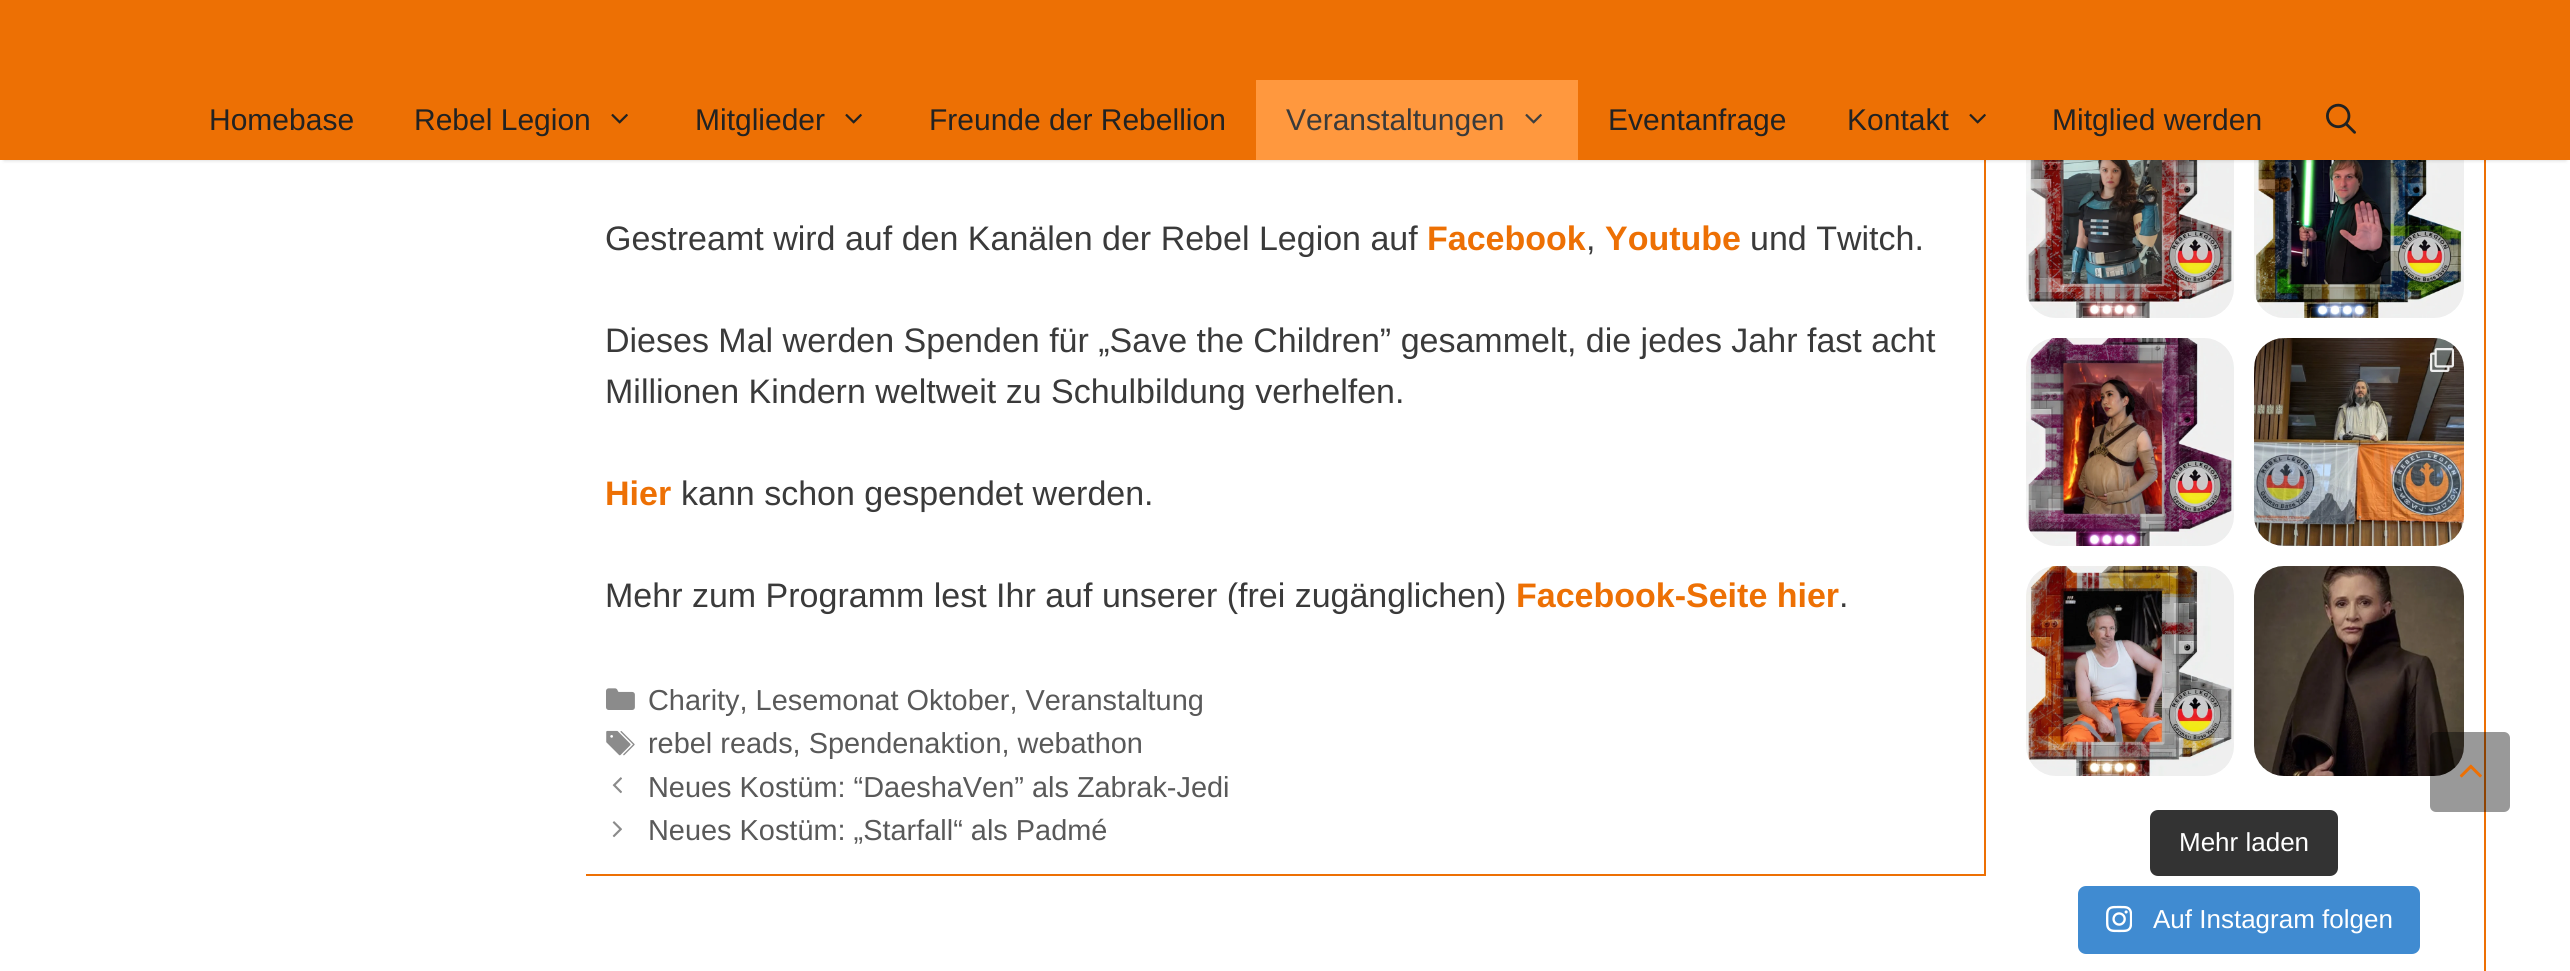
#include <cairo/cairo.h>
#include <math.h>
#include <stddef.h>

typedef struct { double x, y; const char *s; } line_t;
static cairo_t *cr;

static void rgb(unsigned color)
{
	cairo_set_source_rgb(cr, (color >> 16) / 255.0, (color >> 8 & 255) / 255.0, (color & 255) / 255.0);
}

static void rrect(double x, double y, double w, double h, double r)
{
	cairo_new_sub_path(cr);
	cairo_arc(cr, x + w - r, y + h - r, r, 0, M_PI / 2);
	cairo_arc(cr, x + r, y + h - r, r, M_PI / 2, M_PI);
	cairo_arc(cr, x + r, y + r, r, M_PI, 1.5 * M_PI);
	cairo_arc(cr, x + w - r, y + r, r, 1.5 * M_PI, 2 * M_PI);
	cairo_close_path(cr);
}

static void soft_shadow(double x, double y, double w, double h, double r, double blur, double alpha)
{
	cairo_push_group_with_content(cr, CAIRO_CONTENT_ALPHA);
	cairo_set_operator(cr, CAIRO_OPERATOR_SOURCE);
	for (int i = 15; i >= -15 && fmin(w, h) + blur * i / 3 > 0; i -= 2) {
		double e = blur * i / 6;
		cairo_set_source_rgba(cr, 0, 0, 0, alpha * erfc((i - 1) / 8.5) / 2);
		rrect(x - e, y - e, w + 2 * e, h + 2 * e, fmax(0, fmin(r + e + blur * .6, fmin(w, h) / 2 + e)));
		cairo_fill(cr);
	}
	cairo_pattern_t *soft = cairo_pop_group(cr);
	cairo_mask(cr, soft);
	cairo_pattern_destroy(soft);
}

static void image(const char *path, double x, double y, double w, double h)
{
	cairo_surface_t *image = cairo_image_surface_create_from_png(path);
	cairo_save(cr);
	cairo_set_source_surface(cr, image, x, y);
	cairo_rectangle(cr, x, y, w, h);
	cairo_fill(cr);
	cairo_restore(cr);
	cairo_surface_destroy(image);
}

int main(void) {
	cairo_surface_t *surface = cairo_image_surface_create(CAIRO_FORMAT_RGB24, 2570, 971);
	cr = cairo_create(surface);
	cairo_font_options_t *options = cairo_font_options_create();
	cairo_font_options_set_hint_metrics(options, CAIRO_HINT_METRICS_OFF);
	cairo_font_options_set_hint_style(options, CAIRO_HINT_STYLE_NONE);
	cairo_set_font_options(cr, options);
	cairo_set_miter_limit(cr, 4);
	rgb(0xffffff);
	cairo_paint(cr);
	rgb(0xed7004);
	cairo_rectangle(cr, 1984, 160, 2, 716);
	cairo_fill(cr);
	cairo_rectangle(cr, 2484, 160, 2, 811);
	cairo_fill(cr);
	image("img/8.png", 2026, 160, 208, 158);
	image("img/9.png", 2254, 160, 210, 158);
	rgb(0x000000);
	soft_shadow(4, 8, 2562, 152, 0, 2, 0.2);
	rgb(0xed7004);
	cairo_rectangle(cr, 0, 0, 2570, 160);
	cairo_fill(cr);
	image("img/1.png", 611, 113, 17, 11);
	image("img/1.png", 845, 113, 17, 11);
	rgb(0xff983e);
	cairo_rectangle(cr, 1256, 80, 322, 80);
	cairo_fill(cr);
	image("img/2.png", 1525, 113, 17, 11);
	image("img/1.png", 1969, 113, 17, 11);
	image("img/3.png", 2326, 103, 30, 31);
	rgb(0xed7004);
	cairo_rectangle(cr, 586, 874, 1400, 2);
	cairo_fill(cr);
	image("img/4.png", 606, 688, 29, 22);
	image("img/5.png", 606, 730, 29, 26);
	image("img/6.png", 612, 777, 10, 17);
	image("img/7.png", 612, 821, 10, 17);
	image("img/10.png", 2026, 338, 208, 208);
	image("img/11.png", 2254, 338, 210, 208);
	image("img/12.png", 2430, 348, 24, 24);
	image("img/13.png", 2026, 566, 208, 210);
	image("img/14.png", 2254, 566, 210, 210);
	rgb(0x333333);
	rrect(2150, 810, 188, 66, 8);
	cairo_fill(cr);
	rgb(0x408bd1);
	rrect(2078, 886, 342, 68, 8);
	cairo_fill(cr);
	image("img/15.png", 2106, 905, 26, 28);
	cairo_set_source_rgba(cr, 0, 0, 0, 0.4);
	rrect(2430, 732, 80, 80, 6);
	cairo_fill(cr);
	image("img/16.png", 2459, 764, 23, 14);
	cairo_select_font_face(cr, "Liberation Sans", CAIRO_FONT_SLANT_NORMAL, CAIRO_FONT_WEIGHT_NORMAL);
	cairo_set_font_size(cr, 30);
	rgb(0x222222);
	{
		static const line_t items[] = {
			{209, 130, "Homebase"},
			{414, 130, "Rebel Legion"},
			{695, 130, "Mitglieder"},
			{929, 130, "Freunde der Rebellion"},
		};
		for (size_t i = 0; i < sizeof items / sizeof *items; i++) {
			cairo_move_to(cr, items[i].x, items[i].y);
			cairo_show_text(cr, items[i].s);
		}
	}
	rgb(0x3a3a3a);
	cairo_move_to(cr, 1286, 130);
	cairo_show_text(cr, "Veranstaltungen");
	rgb(0x222222);
	{
		static const line_t items[] = {
			{1608, 130, "Eventanfrage"},
			{1847, 130, "Kontakt"},
			{2052, 130, "Mitglied werden"},
		};
		for (size_t i = 0; i < sizeof items / sizeof *items; i++) {
			cairo_move_to(cr, items[i].x, items[i].y);
			cairo_show_text(cr, items[i].s);
		}
	}
	cairo_set_font_size(cr, 34);
	rgb(0x3a3a3a);
	cairo_move_to(cr, 605, 250);
	cairo_show_text(cr, "Gestreamt wird auf den Kanälen der Rebel Legion auf");
	cairo_select_font_face(cr, "Liberation Sans", CAIRO_FONT_SLANT_NORMAL, CAIRO_FONT_WEIGHT_BOLD);
	rgb(0xed7004);
	cairo_move_to(cr, 1427, 250);
	cairo_show_text(cr, "Facebook");
	cairo_select_font_face(cr, "Liberation Sans", CAIRO_FONT_SLANT_NORMAL, CAIRO_FONT_WEIGHT_NORMAL);
	rgb(0x3a3a3a);
	cairo_move_to(cr, 1586, 250);
	cairo_show_text(cr, ",");
	cairo_select_font_face(cr, "Liberation Sans", CAIRO_FONT_SLANT_NORMAL, CAIRO_FONT_WEIGHT_BOLD);
	rgb(0xed7004);
	cairo_move_to(cr, 1605, 250);
	cairo_show_text(cr, "Youtube");
	cairo_select_font_face(cr, "Liberation Sans", CAIRO_FONT_SLANT_NORMAL, CAIRO_FONT_WEIGHT_NORMAL);
	rgb(0x3a3a3a);
	{
		static const line_t items[] = {
			{1750, 250, "und Twitch."},
			{605, 352, "Dieses Mal werden Spenden für „Save the Children” gesammelt, die jedes Jahr fast acht"},
			{605, 403, "Millionen Kindern weltweit zu Schulbildung verhelfen."},
		};
		for (size_t i = 0; i < sizeof items / sizeof *items; i++) {
			cairo_move_to(cr, items[i].x, items[i].y);
			cairo_show_text(cr, items[i].s);
		}
	}
	cairo_select_font_face(cr, "Liberation Sans", CAIRO_FONT_SLANT_NORMAL, CAIRO_FONT_WEIGHT_BOLD);
	rgb(0xed7004);
	cairo_move_to(cr, 605, 505);
	cairo_show_text(cr, "Hier");
	cairo_select_font_face(cr, "Liberation Sans", CAIRO_FONT_SLANT_NORMAL, CAIRO_FONT_WEIGHT_NORMAL);
	rgb(0x3a3a3a);
	cairo_move_to(cr, 681, 505);
	cairo_show_text(cr, "kann schon gespendet werden.");
	cairo_move_to(cr, 605, 607);
	cairo_show_text(cr, "Mehr zum Programm lest Ihr auf unserer (frei zugänglichen)");
	cairo_select_font_face(cr, "Liberation Sans", CAIRO_FONT_SLANT_NORMAL, CAIRO_FONT_WEIGHT_BOLD);
	rgb(0xed7004);
	cairo_move_to(cr, 1516, 607);
	cairo_show_text(cr, "Facebook-Seite hier");
	cairo_select_font_face(cr, "Liberation Sans", CAIRO_FONT_SLANT_NORMAL, CAIRO_FONT_WEIGHT_NORMAL);
	rgb(0x3a3a3a);
	cairo_move_to(cr, 1839, 607);
	cairo_show_text(cr, ".");
	cairo_set_font_size(cr, 28.9);
	rgb(0x595959);
	{
		static const line_t items[] = {
			{648, 710, "Charity, Lesemonat Oktober, Veranstaltung"},
			{648, 753, "rebel reads, Spendenaktion, webathon"},
			{648, 797, "Neues Kostüm: “DaeshaVen” als Zabrak-Jedi"},
			{648, 840, "Neues Kostüm: „Starfall“ als Padmé"},
		};
		for (size_t i = 0; i < sizeof items / sizeof *items; i++) {
			cairo_move_to(cr, items[i].x, items[i].y);
			cairo_show_text(cr, items[i].s);
		}
	}
	cairo_set_font_size(cr, 26);
	rgb(0xffffff);
	cairo_move_to(cr, 2179, 851);
	cairo_show_text(cr, "Mehr laden");
	cairo_move_to(cr, 2153, 928);
	cairo_show_text(cr, "Auf Instagram folgen");
	cairo_surface_write_to_png(surface, "page.png");
	cairo_font_options_destroy(options);
	cairo_destroy(cr);
	cairo_surface_destroy(surface);
	return 0;
}
